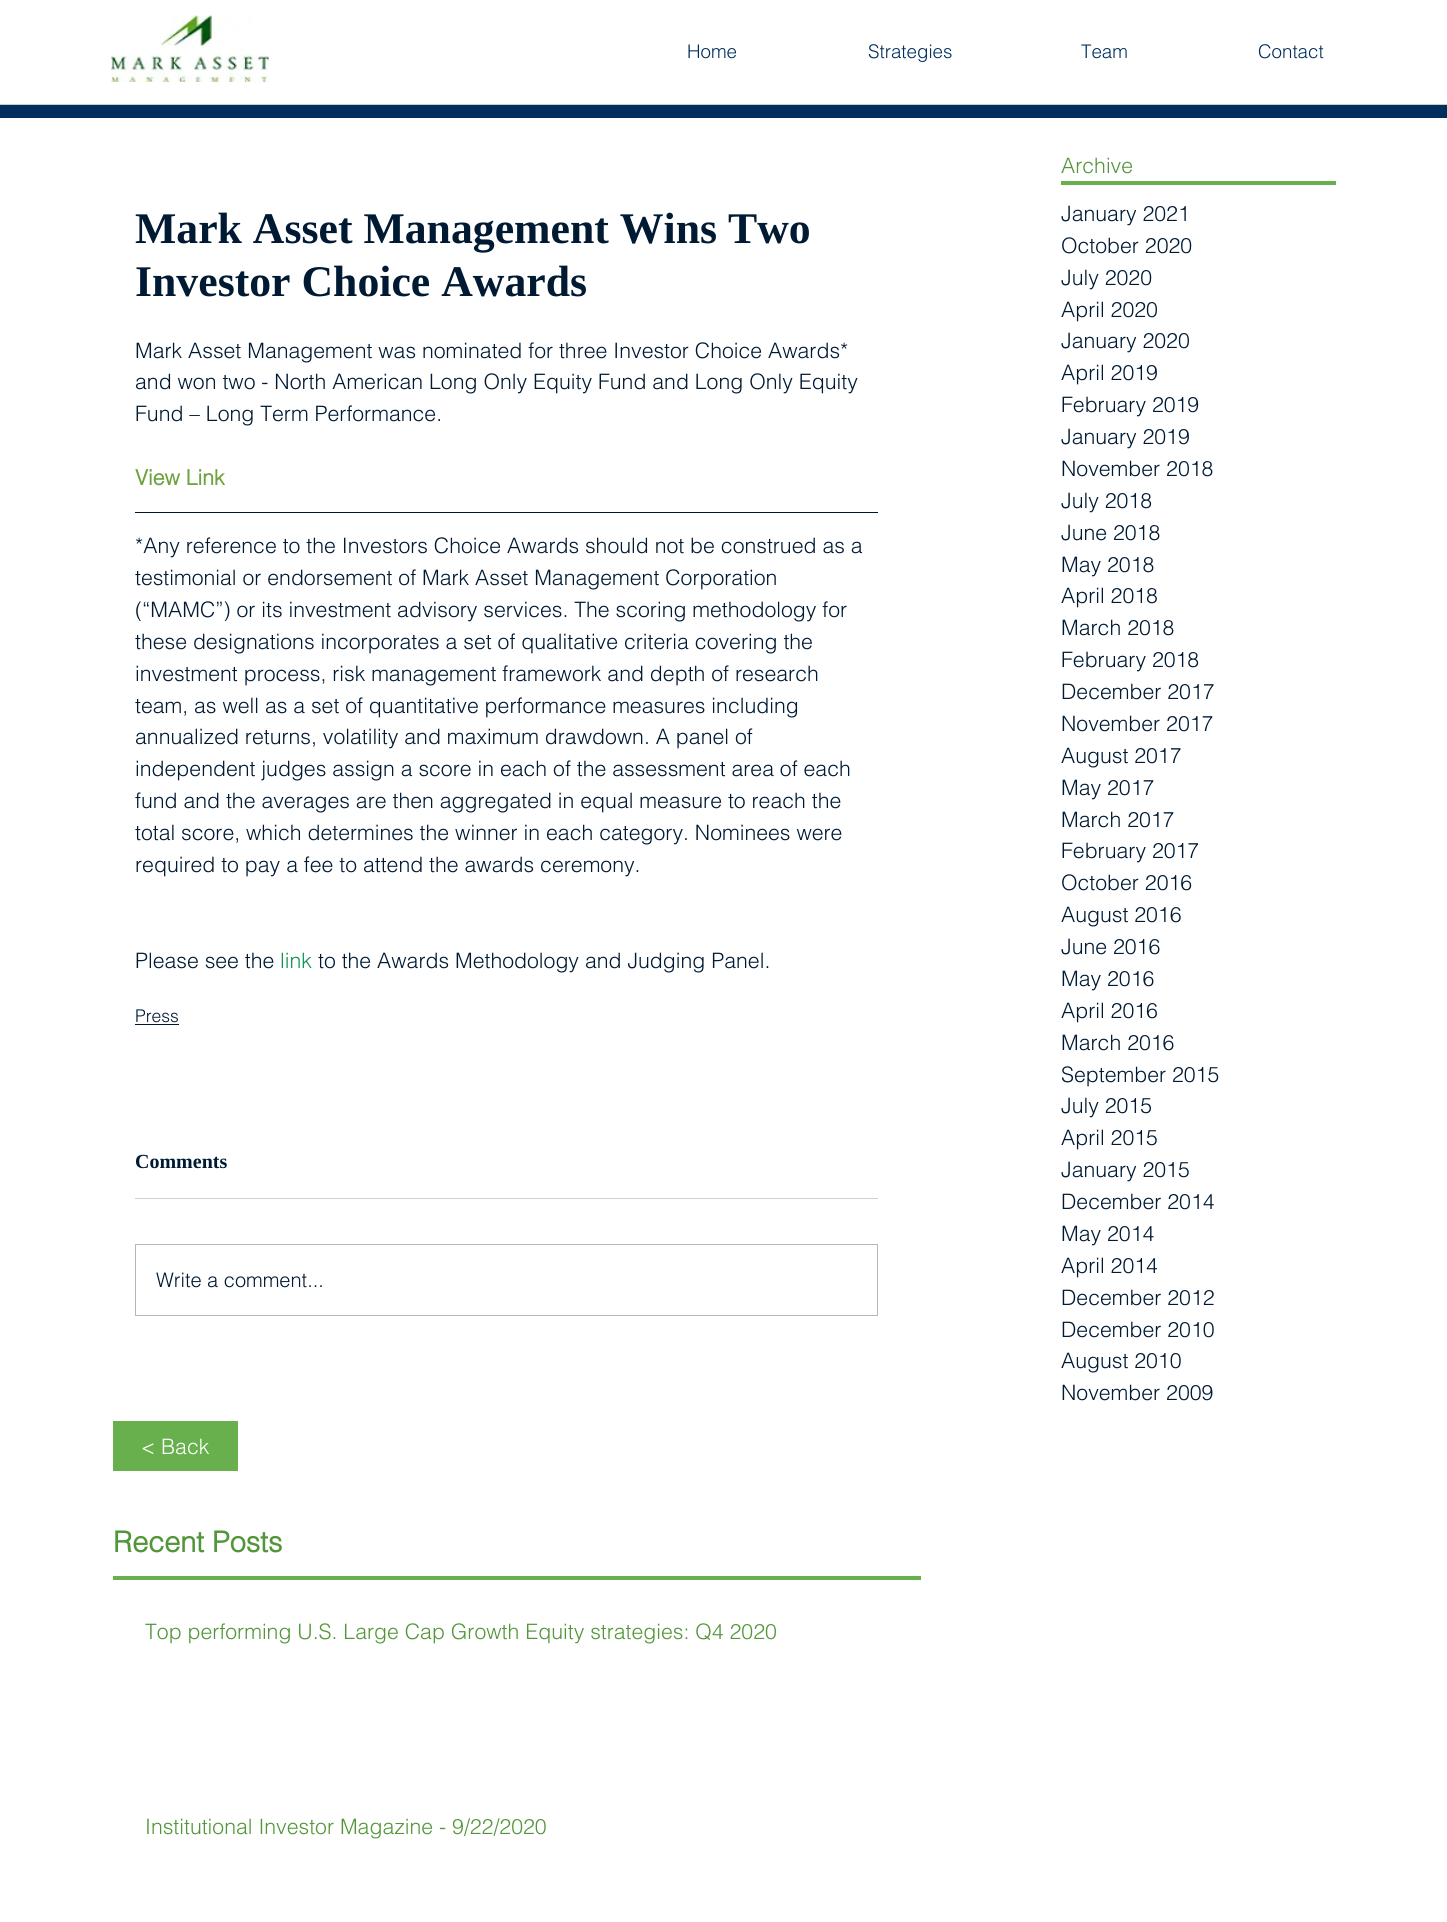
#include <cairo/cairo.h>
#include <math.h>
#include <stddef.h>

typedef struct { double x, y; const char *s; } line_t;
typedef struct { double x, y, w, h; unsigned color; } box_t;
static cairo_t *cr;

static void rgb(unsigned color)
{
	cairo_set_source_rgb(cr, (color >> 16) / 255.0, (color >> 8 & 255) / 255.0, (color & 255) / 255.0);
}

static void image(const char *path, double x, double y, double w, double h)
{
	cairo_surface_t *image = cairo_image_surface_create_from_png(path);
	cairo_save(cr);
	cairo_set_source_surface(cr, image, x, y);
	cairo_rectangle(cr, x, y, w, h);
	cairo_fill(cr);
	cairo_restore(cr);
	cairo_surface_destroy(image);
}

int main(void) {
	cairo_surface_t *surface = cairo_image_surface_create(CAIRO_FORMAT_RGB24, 1447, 1922);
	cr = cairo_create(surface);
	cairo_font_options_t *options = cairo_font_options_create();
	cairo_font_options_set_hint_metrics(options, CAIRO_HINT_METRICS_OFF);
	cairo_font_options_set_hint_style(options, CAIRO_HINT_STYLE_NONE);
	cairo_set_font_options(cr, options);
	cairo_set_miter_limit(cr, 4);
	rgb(0xffffff);
	cairo_paint(cr);
	image("img/1.png", 111, 15, 158, 67);
	{
		static const box_t items[] = {
			{0, 104, 1447, 1, 0xcccccc},
			{0, 105, 1447, 13, 0x002e5d},
			{1061, 181, 275, 4, 0x68b04d},
			{135, 512, 743, 1, 0x00172f},
			{135, 1024, 44, 1, 0x00172f},
			{135, 1198, 743, 1, 0xccd1d5},
		};
		for (size_t i = 0; i < sizeof items / sizeof *items; i++) {
			rgb(items[i].color);
			cairo_rectangle(cr, items[i].x, items[i].y, items[i].w, items[i].h);
			cairo_fill(cr);
		}
	}
	cairo_rectangle(cr, 135.5, 1244.5, 742, 71);
	rgb(0xb7b7b7);
	cairo_set_line_width(cr, 1);
	cairo_stroke(cr);
	rgb(0x68b04d);
	cairo_rectangle(cr, 113, 1421, 125, 50);
	cairo_fill(cr);
	cairo_rectangle(cr, 113, 1576, 808, 4);
	cairo_fill(cr);
	cairo_select_font_face(cr, "helvetica Light", CAIRO_FONT_SLANT_NORMAL, CAIRO_FONT_WEIGHT_NORMAL);
	cairo_set_font_size(cr, 18.75);
	rgb(0x002e5d);
	{
		static const line_t items[] = {
			{687, 58, "Home"},
			{868, 58, "Strategies"},
			{1081, 58, "Team"},
			{1258, 58, "Contact"},
		};
		for (size_t i = 0; i < sizeof items / sizeof *items; i++) {
			cairo_move_to(cr, items[i].x, items[i].y);
			cairo_show_text(cr, items[i].s);
		}
	}
	cairo_set_font_size(cr, 21.25);
	rgb(0x539639);
	cairo_move_to(cr, 1061, 173);
	cairo_show_text(cr, "Archive");
	cairo_select_font_face(cr, "Liberation Serif", CAIRO_FONT_SLANT_NORMAL, CAIRO_FONT_WEIGHT_BOLD);
	cairo_set_font_size(cr, 43.75);
	rgb(0x001a33);
	cairo_move_to(cr, 135, 243);
	cairo_show_text(cr, "Mark Asset Management Wins Two");
	cairo_move_to(cr, 135, 296);
	cairo_show_text(cr, "Investor Choice Awards");
	cairo_select_font_face(cr, "helvetica Light", CAIRO_FONT_SLANT_NORMAL, CAIRO_FONT_WEIGHT_NORMAL);
	cairo_set_font_size(cr, 21.25);
	{
		static const line_t items[] = {
			{135, 358, "Mark Asset Management was nominated for three Investor Choice Awards*"},
			{135, 389, "and won two - North American Long Only Equity Fund and Long Only Equity"},
			{135, 421, "Fund – Long Term Performance."},
		};
		for (size_t i = 0; i < sizeof items / sizeof *items; i++) {
			cairo_move_to(cr, items[i].x, items[i].y);
			cairo_show_text(cr, items[i].s);
		}
	}
	cairo_select_font_face(cr, "helvetica", CAIRO_FONT_SLANT_NORMAL, CAIRO_FONT_WEIGHT_BOLD);
	rgb(0x6fa33f);
	cairo_move_to(cr, 135, 485);
	cairo_show_text(cr, "View Link");
	cairo_select_font_face(cr, "helvetica Light", CAIRO_FONT_SLANT_NORMAL, CAIRO_FONT_WEIGHT_NORMAL);
	rgb(0x001a33);
	{
		static const line_t items[] = {
			{135, 553, "*Any reference to the Investors Choice Awards should not be construed as a"},
			{135, 585, "testimonial or endorsement of Mark Asset Management Corporation"},
			{135, 617, "(“MAMC”) or its investment advisory services. The scoring methodology for"},
			{135, 649, "these designations incorporates a set of qualitative criteria covering the"},
			{135, 681, "investment process, risk management framework and depth of research"},
			{135, 713, "team, as well as a set of quantitative performance measures including"},
			{135, 744, "annualized returns, volatility and maximum drawdown. A panel of"},
			{135, 776, "independent judges assign a score in each of the assessment area of each"},
			{135, 808, "fund and the averages are then aggregated in equal measure to reach the"},
			{135, 840, "total score, which determines the winner in each category. Nominees were"},
			{135, 872, "required to pay a fee to attend the awards ceremony."},
			{135, 968, "Please see the"},
		};
		for (size_t i = 0; i < sizeof items / sizeof *items; i++) {
			cairo_move_to(cr, items[i].x, items[i].y);
			cairo_show_text(cr, items[i].s);
		}
	}
	rgb(0x0e9553);
	cairo_move_to(cr, 280, 968);
	cairo_show_text(cr, "link");
	rgb(0x001a33);
	cairo_move_to(cr, 318, 968);
	cairo_show_text(cr, "to the Awards Methodology and Judging Panel.");
	cairo_set_font_size(cr, 17.5);
	cairo_move_to(cr, 135, 1022);
	cairo_show_text(cr, "Press");
	cairo_select_font_face(cr, "Liberation Serif", CAIRO_FONT_SLANT_NORMAL, CAIRO_FONT_WEIGHT_BOLD);
	cairo_set_font_size(cr, 20);
	cairo_move_to(cr, 135, 1168);
	cairo_show_text(cr, "Comments");
	cairo_select_font_face(cr, "helvetica Light", CAIRO_FONT_SLANT_NORMAL, CAIRO_FONT_WEIGHT_NORMAL);
	cairo_move_to(cr, 156, 1287);
	cairo_show_text(cr, "Write a comment...");
	cairo_set_font_size(cr, 21.25);
	{
		static const line_t items[] = {
			{1061, 221, "January 2021"},
			{1061, 253, "October 2020"},
			{1061, 285, "July 2020"},
			{1061, 317, "April 2020"},
			{1061, 348, "January 2020"},
			{1061, 380, "April 2019"},
			{1061, 412, "February 2019"},
			{1061, 444, "January 2019"},
			{1061, 476, "November 2018"},
			{1061, 508, "July 2018"},
			{1061, 540, "June 2018"},
			{1061, 572, "May 2018"},
			{1061, 603, "April 2018"},
			{1061, 635, "March 2018"},
			{1061, 667, "February 2018"},
			{1061, 699, "December 2017"},
			{1061, 731, "November 2017"},
			{1061, 763, "August 2017"},
			{1061, 795, "May 2017"},
			{1061, 827, "March 2017"},
			{1061, 858, "February 2017"},
			{1061, 890, "October 2016"},
			{1061, 922, "August 2016"},
			{1061, 954, "June 2016"},
			{1061, 986, "May 2016"},
			{1061, 1018, "April 2016"},
			{1061, 1050, "March 2016"},
			{1061, 1082, "September 2015"},
			{1061, 1113, "July 2015"},
			{1061, 1145, "April 2015"},
			{1061, 1177, "January 2015"},
			{1061, 1209, "December 2014"},
			{1061, 1241, "May 2014"},
			{1061, 1273, "April 2014"},
			{1061, 1305, "December 2012"},
			{1061, 1337, "December 2010"},
			{1061, 1368, "August 2010"},
			{1061, 1400, "November 2009"},
		};
		for (size_t i = 0; i < sizeof items / sizeof *items; i++) {
			cairo_move_to(cr, items[i].x, items[i].y);
			cairo_show_text(cr, items[i].s);
		}
	}
	rgb(0xffffff);
	cairo_move_to(cr, 141, 1454);
	cairo_show_text(cr, "< Back");
	cairo_select_font_face(cr, "helvetica", CAIRO_FONT_SLANT_NORMAL, CAIRO_FONT_WEIGHT_BOLD);
	cairo_set_font_size(cr, 28.75);
	rgb(0x539639);
	cairo_move_to(cr, 113, 1552);
	cairo_show_text(cr, "Recent Posts");
	cairo_select_font_face(cr, "helvetica Light", CAIRO_FONT_SLANT_NORMAL, CAIRO_FONT_WEIGHT_NORMAL);
	cairo_set_font_size(cr, 21.25);
	cairo_move_to(cr, 145, 1639);
	cairo_show_text(cr, "Top performing U.S. Large Cap Growth Equity strategies: Q4 2020");
	cairo_move_to(cr, 145, 1834);
	cairo_show_text(cr, "Institutional Investor Magazine - 9/22/2020");
	cairo_surface_write_to_png(surface, "page.png");
	cairo_font_options_destroy(options);
	cairo_destroy(cr);
	cairo_surface_destroy(surface);
	return 0;
}
